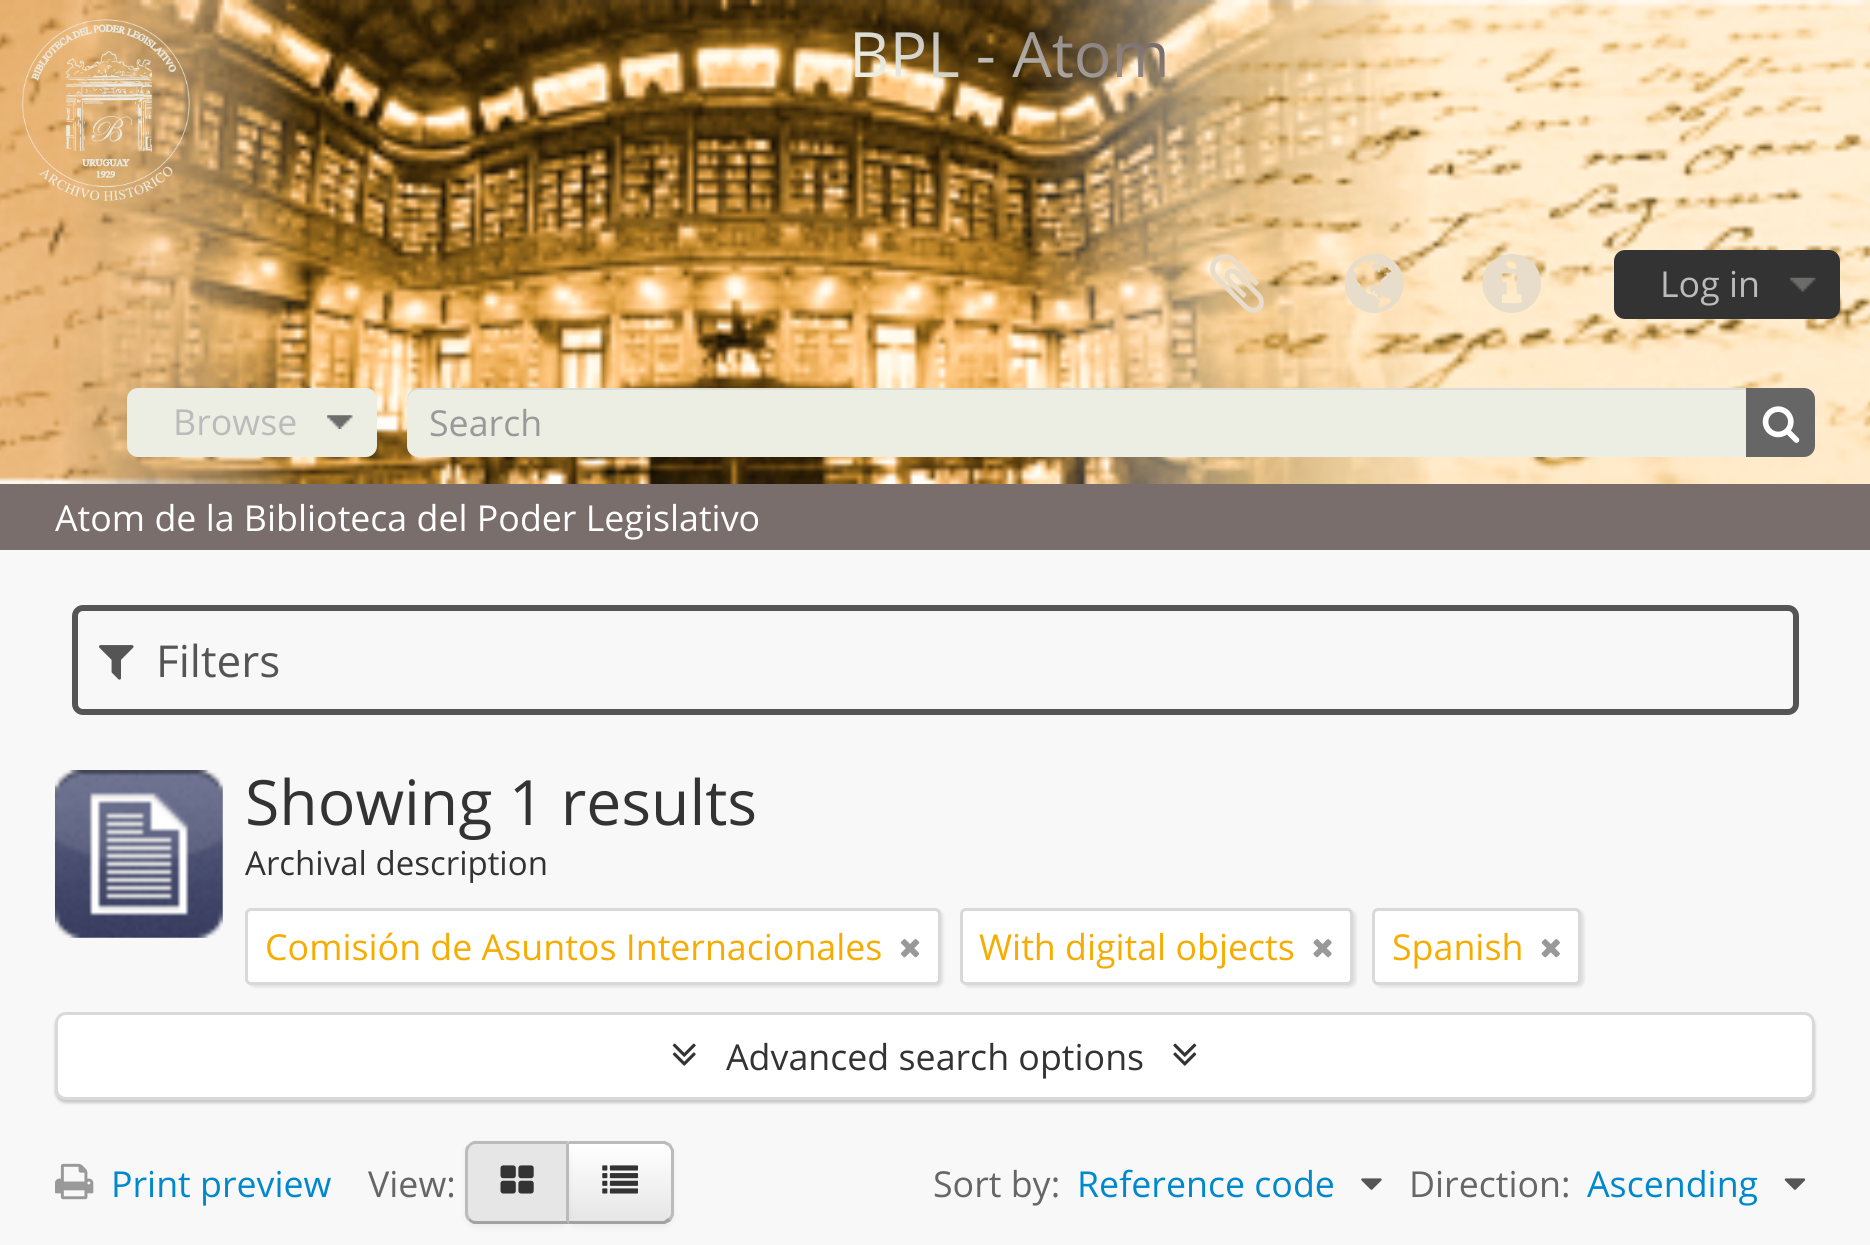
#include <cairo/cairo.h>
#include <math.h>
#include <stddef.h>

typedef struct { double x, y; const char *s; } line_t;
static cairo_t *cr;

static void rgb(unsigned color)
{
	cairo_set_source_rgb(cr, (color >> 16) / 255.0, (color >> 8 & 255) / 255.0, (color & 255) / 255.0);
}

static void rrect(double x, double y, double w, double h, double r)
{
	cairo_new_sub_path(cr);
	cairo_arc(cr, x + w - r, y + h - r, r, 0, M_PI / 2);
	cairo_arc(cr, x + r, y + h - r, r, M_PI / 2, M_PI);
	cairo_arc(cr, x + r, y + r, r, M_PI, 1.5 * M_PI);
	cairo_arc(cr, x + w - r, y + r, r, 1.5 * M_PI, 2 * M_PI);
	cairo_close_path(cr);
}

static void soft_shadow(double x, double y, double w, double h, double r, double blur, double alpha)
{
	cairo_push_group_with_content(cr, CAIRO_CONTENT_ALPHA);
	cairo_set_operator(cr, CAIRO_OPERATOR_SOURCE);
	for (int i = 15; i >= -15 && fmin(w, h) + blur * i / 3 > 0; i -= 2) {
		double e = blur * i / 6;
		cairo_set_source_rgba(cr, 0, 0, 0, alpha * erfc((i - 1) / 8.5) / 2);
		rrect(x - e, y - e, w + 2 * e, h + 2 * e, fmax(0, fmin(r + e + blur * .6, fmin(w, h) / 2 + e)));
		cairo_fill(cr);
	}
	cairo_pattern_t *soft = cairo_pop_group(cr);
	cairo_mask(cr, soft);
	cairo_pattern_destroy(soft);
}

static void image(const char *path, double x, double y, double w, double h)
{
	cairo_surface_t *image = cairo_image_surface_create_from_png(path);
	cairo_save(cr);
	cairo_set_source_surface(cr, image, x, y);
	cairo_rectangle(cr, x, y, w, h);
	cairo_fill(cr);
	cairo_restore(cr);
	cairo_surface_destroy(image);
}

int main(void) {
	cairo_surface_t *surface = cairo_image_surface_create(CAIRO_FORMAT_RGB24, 1870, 1245);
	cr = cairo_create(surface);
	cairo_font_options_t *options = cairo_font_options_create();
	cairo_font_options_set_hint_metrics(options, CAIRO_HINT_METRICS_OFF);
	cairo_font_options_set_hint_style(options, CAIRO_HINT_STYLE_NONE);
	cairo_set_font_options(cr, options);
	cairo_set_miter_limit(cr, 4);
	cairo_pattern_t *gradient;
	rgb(0xf8f8f8);
	cairo_paint(cr);
	image("img/1.png", 0, 0, 1870, 484);
	image("img/2.png", 22, 19, 168, 182);
	image("img/3.png", 1210, 254, 54, 59);
	image("img/4.png", 1344, 254, 60, 59);
	image("img/5.png", 1482, 254, 59, 59);
	rgb(0x333333);
	rrect(1614, 250, 226, 69, 11);
	cairo_fill(cr);
	image("img/6.png", 1790, 277, 26, 15);
	rgb(0xecede3);
	rrect(127, 388, 250, 69, 11);
	cairo_fill(cr);
	image("img/7.png", 327, 415, 26, 14);
	rrect(407, 388, 1408, 69, 11);
	cairo_fill(cr);
	cairo_set_source_rgba(cr, 0, 0, 0, 0.07);
	cairo_new_path(cr);
	cairo_move_to(cr, 418, 390);
	cairo_line_to(cr, 1804, 390);
	cairo_curve_to(cr, 1810, 390, 1815, 395, 1815, 402);
	cairo_curve_to(cr, 1815, 395, 1812, 388, 1804, 388);
	cairo_line_to(cr, 418, 388);
	cairo_curve_to(cr, 410, 388, 407, 395, 407, 402);
	cairo_curve_to(cr, 407, 395, 412, 390, 418, 390);
	cairo_close_path(cr);
	cairo_fill(cr);
	rgb(0x666666);
	cairo_new_path(cr);
	cairo_move_to(cr, 1746, 388);
	cairo_line_to(cr, 1804, 388);
	cairo_curve_to(cr, 1810, 388, 1815, 393, 1815, 399);
	cairo_line_to(cr, 1815, 446);
	cairo_curve_to(cr, 1815, 452, 1810, 457, 1804, 457);
	cairo_line_to(cr, 1746, 457);
	cairo_close_path(cr);
	cairo_fill(cr);
	image("img/8.png", 1762, 406, 38, 37);
	rgb(0x7a6e6c);
	cairo_rectangle(cr, 0, 484, 1870, 66);
	cairo_fill(cr);
	rrect(75, 608, 1721, 104, 8);
	rgb(0x555555);
	cairo_set_line_width(cr, 6);
	cairo_stroke(cr);
	image("img/9.png", 99, 645, 35, 35);
	image("img/10.png", 55, 770, 168, 168);
	rgb(0x000000);
	soft_shadow(248, 910, 695, 77, 6, 1.5, 0.1);
	rgb(0xffffff);
	rrect(246.5, 909.5, 693, 74, 4.5);
	cairo_fill_preserve(cr);
	rgb(0xd9d9d9);
	cairo_set_line_width(cr, 3);
	cairo_stroke(cr);
	image("img/11.png", 901, 939, 19, 19);
	rgb(0x000000);
	soft_shadow(963, 910, 393, 77, 6, 1.5, 0.1);
	rgb(0xffffff);
	rrect(961.5, 909.5, 390, 74, 4.5);
	cairo_fill_preserve(cr);
	rgb(0xd9d9d9);
	cairo_stroke(cr);
	image("img/12.png", 1313, 939, 19, 19);
	rgb(0x000000);
	soft_shadow(1375, 910, 209, 77, 6, 1.5, 0.1);
	rgb(0xffffff);
	rrect(1373.5, 909.5, 206, 74, 4.5);
	cairo_fill_preserve(cr);
	rgb(0xd9d9d9);
	cairo_stroke(cr);
	image("img/13.png", 1541, 939, 19, 19);
	rgb(0x000000);
	soft_shadow(55, 1015, 1760, 88, 11, 1.5, 0.2);
	rgb(0xffffff);
	rrect(56.5, 1013.5, 1757, 85, 9.5);
	cairo_fill_preserve(cr);
	rgb(0xd9d9d9);
	cairo_stroke(cr);
	image("img/14.png", 672, 1043, 24, 23);
	image("img/15.png", 1173, 1043, 24, 23);
	image("img/16.png", 55, 1163, 39, 37);
	rgb(0x000000);
	soft_shadow(567, 1144, 107, 83, 11, 3, 0.05);
	rgb(0xf5f5f5);
	cairo_new_path(cr);
	cairo_move_to(cr, 567, 1141);
	cairo_line_to(cr, 663, 1141);
	cairo_curve_to(cr, 669, 1141, 674, 1146, 674, 1152);
	cairo_line_to(cr, 674, 1213);
	cairo_curve_to(cr, 674, 1219, 669, 1224, 663, 1224);
	cairo_line_to(cr, 567, 1224);
	cairo_close_path(cr);
	cairo_fill(cr);
	cairo_save(cr);
	cairo_new_path(cr);
	cairo_move_to(cr, 567, 1141);
	cairo_line_to(cr, 663, 1141);
	cairo_curve_to(cr, 669, 1141, 674, 1146, 674, 1152);
	cairo_line_to(cr, 674, 1213);
	cairo_curve_to(cr, 674, 1219, 669, 1224, 663, 1224);
	cairo_line_to(cr, 567, 1224);
	cairo_close_path(cr);
	cairo_clip(cr);
	gradient = cairo_pattern_create_linear(620, 1144, 620, 1221);
	cairo_pattern_add_color_stop_rgba(gradient, 0, 1, 1, 1, 1);
	cairo_pattern_add_color_stop_rgba(gradient, 1, 0.902, 0.902, 0.902, 1);
	cairo_set_source(cr, gradient);
	cairo_pattern_destroy(gradient);
	cairo_rectangle(cr, 569, 1144, 105, 77);
	cairo_fill(cr);
	cairo_restore(cr);
	rgb(0xbbbbbb);
	cairo_new_path(cr);
	cairo_move_to(cr, 566, 1141);
	cairo_line_to(cr, 665, 1141);
	cairo_curve_to(cr, 667, 1142, 669, 1143, 671, 1144);
	cairo_line_to(cr, 668, 1146);
	cairo_line_to(cr, 664, 1144);
	cairo_line_to(cr, 569, 1144);
	cairo_close_path(cr);
	cairo_fill(cr);
	cairo_new_path(cr);
	cairo_move_to(cr, 674, 1215);
	cairo_curve_to(cr, 673, 1217, 672, 1219, 671, 1221);
	cairo_line_to(cr, 668, 1218);
	cairo_curve_to(cr, 670, 1217, 671, 1215, 671, 1213);
	cairo_line_to(cr, 671, 1152);
	cairo_curve_to(cr, 671, 1150, 670, 1148, 668, 1146);
	cairo_line_to(cr, 671, 1144);
	cairo_curve_to(cr, 672, 1146, 673, 1148, 674, 1150);
	cairo_close_path(cr);
	cairo_fill(cr);
	rgb(0xa2a2a2);
	cairo_new_path(cr);
	cairo_move_to(cr, 671, 1221);
	cairo_curve_to(cr, 669, 1222, 667, 1223, 665, 1224);
	cairo_line_to(cr, 566, 1224);
	cairo_line_to(cr, 569, 1221);
	cairo_line_to(cr, 664, 1221);
	cairo_line_to(cr, 668, 1218);
	cairo_close_path(cr);
	cairo_fill(cr);
	rgb(0x000000);
	soft_shadow(465, 1144, 104, 83, 11, 3, 0.05);
	rgb(0xe6e6e6);
	cairo_new_path(cr);
	cairo_move_to(cr, 476, 1141);
	cairo_line_to(cr, 569, 1141);
	cairo_line_to(cr, 569, 1224);
	cairo_line_to(cr, 476, 1224);
	cairo_curve_to(cr, 470, 1224, 465, 1219, 465, 1213);
	cairo_line_to(cr, 465, 1152);
	cairo_curve_to(cr, 465, 1146, 470, 1141, 476, 1141);
	cairo_close_path(cr);
	cairo_fill(cr);
	rgb(0xbbbbbb);
	cairo_new_path(cr);
	cairo_move_to(cr, 476, 1144);
	cairo_curve_to(cr, 473, 1144, 471, 1145, 470, 1147);
	cairo_line_to(cr, 468, 1145);
	cairo_curve_to(cr, 470, 1143, 471, 1142, 474, 1141);
	cairo_line_to(cr, 569, 1141);
	cairo_line_to(cr, 566, 1144);
	cairo_close_path(cr);
	cairo_fill(cr);
	cairo_new_path(cr);
	cairo_move_to(cr, 569, 1142);
	cairo_line_to(cr, 569, 1224);
	cairo_line_to(cr, 566, 1220);
	cairo_line_to(cr, 566, 1144);
	cairo_close_path(cr);
	cairo_fill(cr);
	rgb(0xa2a2a2);
	cairo_new_path(cr);
	cairo_move_to(cr, 474, 1224);
	cairo_curve_to(cr, 471, 1223, 470, 1222, 468, 1220);
	cairo_line_to(cr, 470, 1218);
	cairo_curve_to(cr, 471, 1220, 473, 1221, 476, 1221);
	cairo_line_to(cr, 566, 1221);
	cairo_line_to(cr, 566, 1220);
	cairo_line_to(cr, 569, 1224);
	cairo_close_path(cr);
	cairo_fill(cr);
	rgb(0xbbbbbb);
	cairo_new_path(cr);
	cairo_move_to(cr, 468, 1220);
	cairo_curve_to(cr, 466, 1219, 465, 1216, 465, 1213);
	cairo_line_to(cr, 465, 1152);
	cairo_curve_to(cr, 465, 1149, 466, 1146, 468, 1145);
	cairo_line_to(cr, 470, 1147);
	cairo_curve_to(cr, 469, 1148, 468, 1150, 468, 1152);
	cairo_line_to(cr, 468, 1213);
	cairo_curve_to(cr, 468, 1215, 469, 1217, 470, 1218);
	cairo_close_path(cr);
	cairo_fill(cr);
	image("img/17.png", 500, 1165, 34, 29);
	image("img/18.png", 602, 1165, 36, 29);
	image("img/19.png", 1361, 1178, 21, 12);
	image("img/20.png", 1784, 1178, 22, 12);
	cairo_select_font_face(cr, "Open Sans", CAIRO_FONT_SLANT_NORMAL, CAIRO_FONT_WEIGHT_NORMAL);
	cairo_set_font_size(cr, 62.5);
	gradient = cairo_pattern_create_linear(937, 158, 1082, -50);
	cairo_pattern_add_color_stop_rgba(gradient, 0.15, 0.925, 0.929, 0.89, 1);
	cairo_pattern_add_color_stop_rgba(gradient, 0.85, 0.478, 0.431, 0.424, 1);
	cairo_set_source(cr, gradient);
	cairo_pattern_destroy(gradient);
	cairo_move_to(cr, 849, 77);
	cairo_show_text(cr, "BPL - Atom");
	cairo_set_font_size(cr, 35.75);
	rgb(0xbbbbbb);
	cairo_move_to(cr, 1660, 297);
	cairo_show_text(cr, "Log in");
	cairo_move_to(cr, 173, 435);
	cairo_show_text(cr, "Browse");
	rgb(0x999999);
	cairo_move_to(cr, 429, 436);
	cairo_show_text(cr, "Search");
	rgb(0xffffff);
	cairo_move_to(cr, 55, 531);
	cairo_show_text(cr, "Atom de la Biblioteca del Poder Legislativo");
	cairo_set_font_size(cr, 44);
	rgb(0x555555);
	cairo_move_to(cr, 156, 677);
	cairo_show_text(cr, "Filters");
	cairo_set_font_size(cr, 62.5);
	rgb(0x333333);
	cairo_move_to(cr, 245, 825);
	cairo_show_text(cr, "Showing 1 results");
	cairo_set_font_size(cr, 33);
	cairo_move_to(cr, 245, 875);
	cairo_show_text(cr, "Archival description");
	cairo_set_font_size(cr, 35.75);
	rgb(0xf6ac00);
	{
		static const line_t items[] = {
			{265, 960, "Comisión de Asuntos Internacionales"},
			{979, 960, "With digital objects"},
			{1392, 960, "Spanish"},
		};
		for (size_t i = 0; i < sizeof items / sizeof *items; i++) {
			cairo_move_to(cr, items[i].x, items[i].y);
			cairo_show_text(cr, items[i].s);
		}
	}
	rgb(0x333333);
	cairo_move_to(cr, 726, 1070);
	cairo_show_text(cr, "Advanced search options");
	rgb(0x0088cc);
	cairo_move_to(cr, 111, 1197);
	cairo_show_text(cr, "Print preview");
	rgb(0x666666);
	cairo_move_to(cr, 368, 1197);
	cairo_show_text(cr, "View:");
	cairo_move_to(cr, 933, 1197);
	cairo_show_text(cr, "Sort by:");
	rgb(0x0088cc);
	cairo_move_to(cr, 1077, 1197);
	cairo_show_text(cr, "Reference code");
	rgb(0x666666);
	cairo_move_to(cr, 1409, 1197);
	cairo_show_text(cr, "Direction:");
	rgb(0x0088cc);
	cairo_move_to(cr, 1587, 1197);
	cairo_show_text(cr, "Ascending");
	cairo_surface_write_to_png(surface, "page.png");
	cairo_font_options_destroy(options);
	cairo_destroy(cr);
	cairo_surface_destroy(surface);
	return 0;
}
